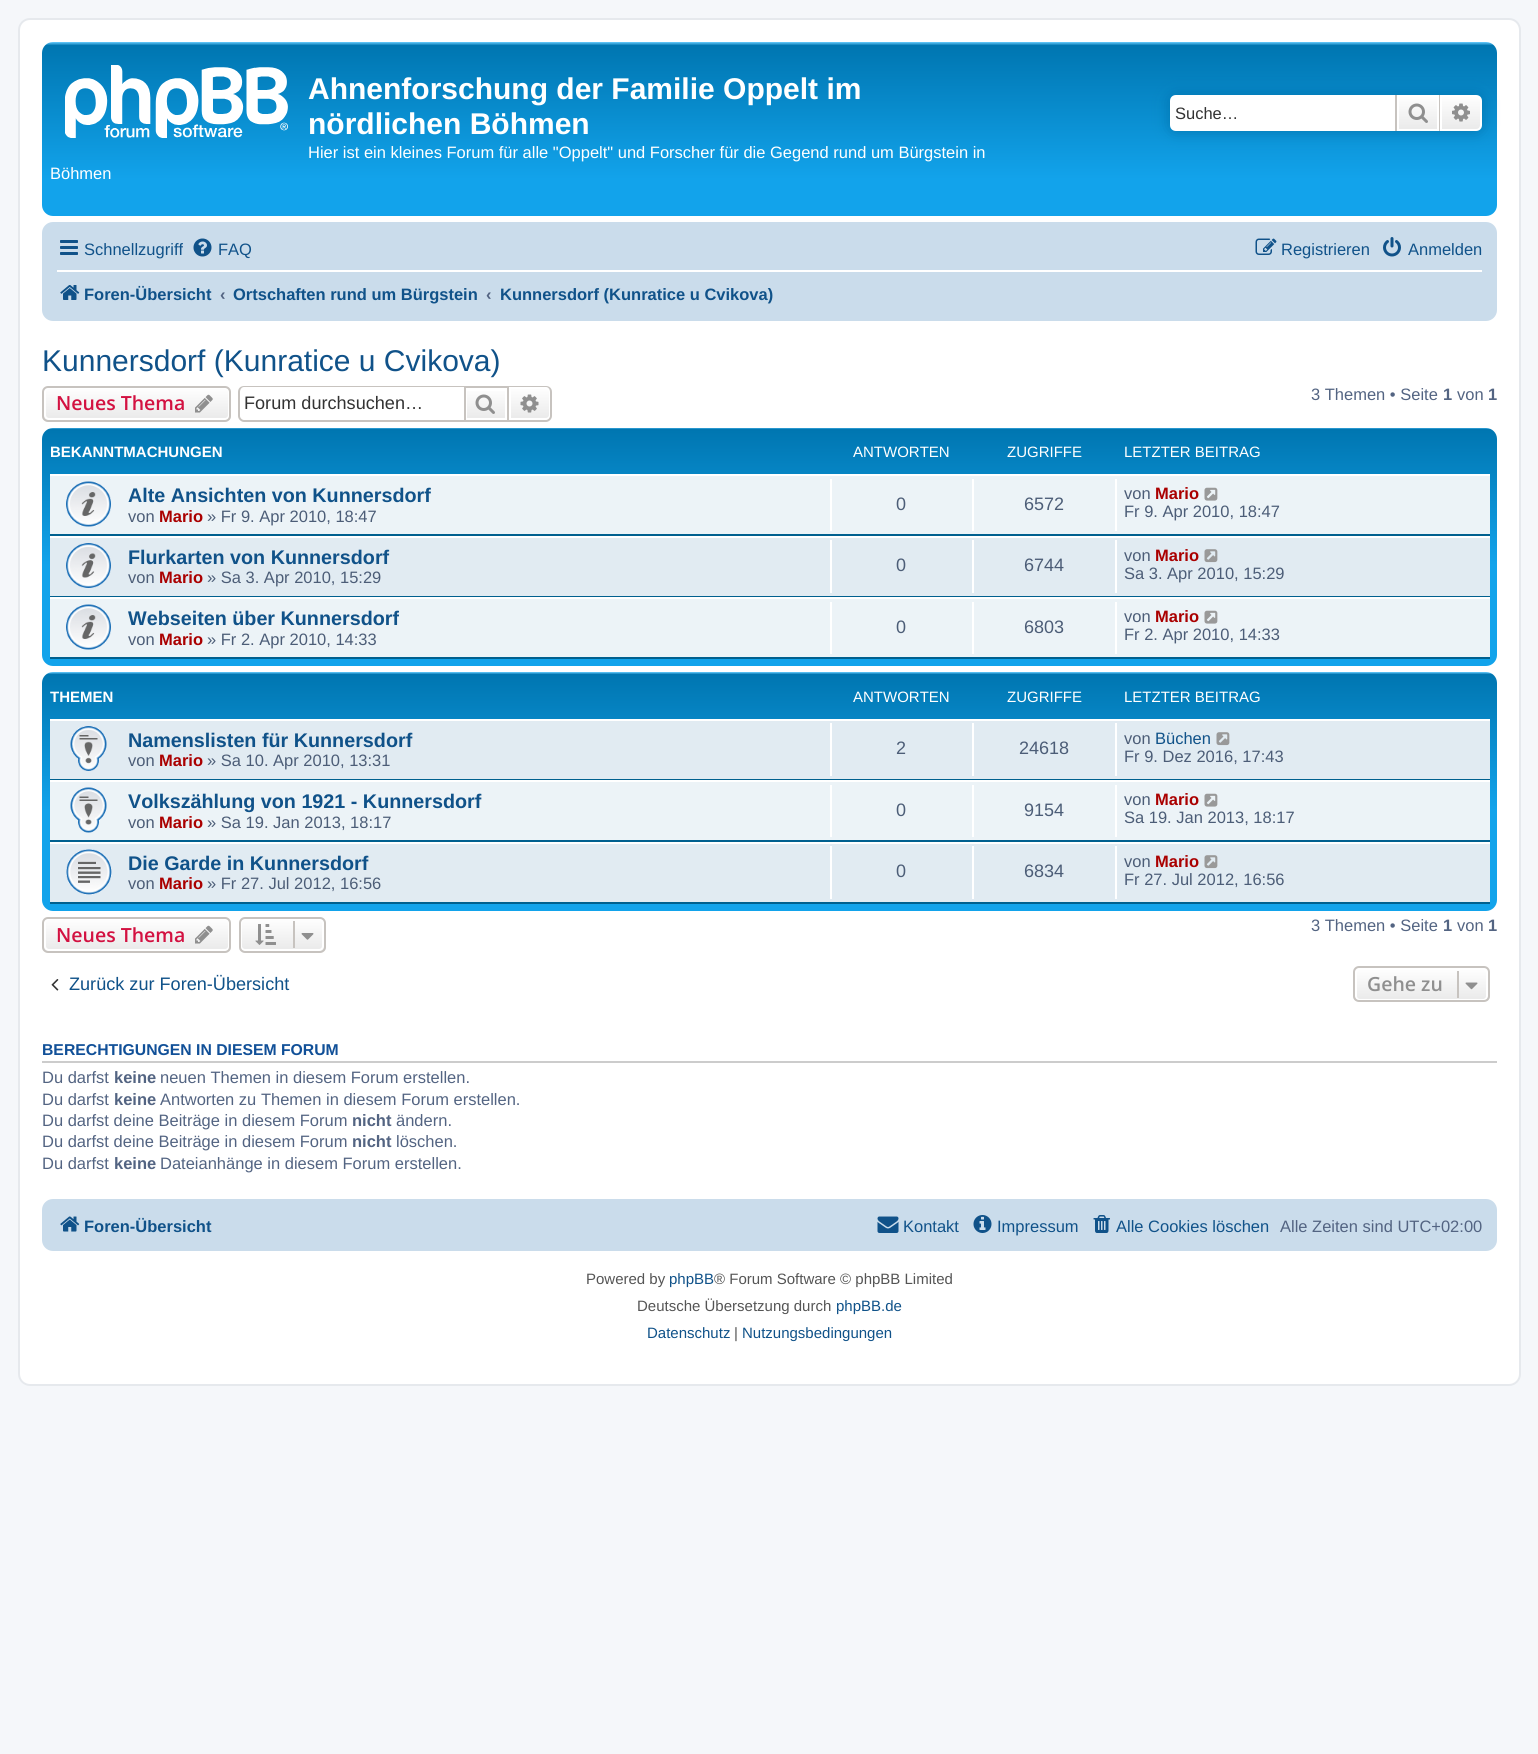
#include <cairo/cairo.h>
#include <math.h>
#include <stddef.h>

typedef struct { double x, y; const char *s; } line_t;
typedef struct { double x, y, w, h; unsigned color; } box_t;
static cairo_t *cr;

static void rgb(unsigned color)
{
	cairo_set_source_rgb(cr, (color >> 16) / 255.0, (color >> 8 & 255) / 255.0, (color & 255) / 255.0);
}

static void rrect(double x, double y, double w, double h, double r)
{
	cairo_new_sub_path(cr);
	cairo_arc(cr, x + w - r, y + h - r, r, 0, M_PI / 2);
	cairo_arc(cr, x + r, y + h - r, r, M_PI / 2, M_PI);
	cairo_arc(cr, x + r, y + r, r, M_PI, 1.5 * M_PI);
	cairo_arc(cr, x + w - r, y + r, r, 1.5 * M_PI, 2 * M_PI);
	cairo_close_path(cr);
}

static void soft_shadow(double x, double y, double w, double h, double r, double blur, double alpha)
{
	cairo_push_group_with_content(cr, CAIRO_CONTENT_ALPHA);
	cairo_set_operator(cr, CAIRO_OPERATOR_SOURCE);
	for (int i = 15; i >= -15 && fmin(w, h) + blur * i / 3 > 0; i -= 2) {
		double e = blur * i / 6;
		cairo_set_source_rgba(cr, 0, 0, 0, alpha * erfc((i - 1) / 8.5) / 2);
		rrect(x - e, y - e, w + 2 * e, h + 2 * e, fmax(0, fmin(r + e + blur * .6, fmin(w, h) / 2 + e)));
		cairo_fill(cr);
	}
	cairo_pattern_t *soft = cairo_pop_group(cr);
	cairo_mask(cr, soft);
	cairo_pattern_destroy(soft);
}

static void image(const char *path, double x, double y, double w, double h)
{
	cairo_surface_t *image = cairo_image_surface_create_from_png(path);
	cairo_save(cr);
	cairo_set_source_surface(cr, image, x, y);
	cairo_rectangle(cr, x, y, w, h);
	cairo_fill(cr);
	cairo_restore(cr);
	cairo_surface_destroy(image);
}

int main(void) {
	cairo_surface_t *surface = cairo_image_surface_create(CAIRO_FORMAT_RGB24, 1538, 1754);
	cr = cairo_create(surface);
	cairo_font_options_t *options = cairo_font_options_create();
	cairo_font_options_set_hint_metrics(options, CAIRO_HINT_METRICS_OFF);
	cairo_font_options_set_hint_style(options, CAIRO_HINT_STYLE_NONE);
	cairo_set_font_options(cr, options);
	cairo_set_miter_limit(cr, 4);
	cairo_pattern_t *gradient;
	rgb(0xf5f7fa);
	cairo_paint(cr);
	rgb(0xffffff);
	rrect(19, 19, 1501, 1366, 11);
	cairo_fill_preserve(cr);
	rgb(0xe6e9ed);
	cairo_stroke(cr);
	gradient = cairo_pattern_create_linear(770, 42, 770, 216);
	cairo_pattern_add_color_stop_rgba(gradient, 0, 0.416, 0.808, 1, 1);
	cairo_pattern_add_color_stop_rgba(gradient, 0.02, 0, 0.463, 0.694, 1);
	cairo_pattern_add_color_stop_rgba(gradient, 0.79, 0.071, 0.639, 0.922, 1);
	cairo_pattern_add_color_stop_rgba(gradient, 1, 0.071, 0.639, 0.922, 1);
	cairo_set_source(cr, gradient);
	cairo_pattern_destroy(gradient);
	rrect(42, 42, 1455, 174, 11);
	cairo_fill(cr);
	image("img/1.png", 65, 65, 223, 73);
	rgb(0x0075b0);
	soft_shadow(1170, 95, 312, 36, 6, 7.5, 1);
	rgb(0xffffff);
	cairo_new_path(cr);
	cairo_move_to(cr, 1176, 95);
	cairo_line_to(cr, 1395, 95);
	cairo_line_to(cr, 1395, 131);
	cairo_line_to(cr, 1176, 131);
	cairo_curve_to(cr, 1172.5, 131, 1170, 128.5, 1170, 125);
	cairo_line_to(cr, 1170, 101);
	cairo_curve_to(cr, 1170, 97.5, 1172.5, 95, 1176, 95);
	cairo_close_path(cr);
	cairo_fill(cr);
	gradient = cairo_pattern_create_linear(1418, 95, 1418, 131);
	cairo_pattern_add_color_stop_rgba(gradient, 0, 1, 1, 1, 1);
	cairo_pattern_add_color_stop_rgba(gradient, 1, 0.914, 0.914, 0.914, 1);
	cairo_set_source(cr, gradient);
	cairo_pattern_destroy(gradient);
	cairo_rectangle(cr, 1399, 97, 38, 32);
	cairo_fill(cr);
	cairo_rectangle(cr, 1398, 96, 40, 34);
	rgb(0xffffff);
	cairo_stroke(cr);
	rgb(0xc7c3bf);
	cairo_rectangle(cr, 1439, 95, 1, 36);
	cairo_fill(cr);
	cairo_rectangle(cr, 1395, 95, 2, 36);
	cairo_fill(cr);
	image("img/2.png", 1408, 103, 20, 20);
	gradient = cairo_pattern_create_linear(1461, 95, 1461, 131);
	cairo_pattern_add_color_stop_rgba(gradient, 0, 1, 1, 1, 1);
	cairo_pattern_add_color_stop_rgba(gradient, 1, 0.914, 0.914, 0.914, 1);
	cairo_set_source(cr, gradient);
	cairo_pattern_destroy(gradient);
	cairo_new_path(cr);
	cairo_move_to(cr, 1441, 96);
	cairo_line_to(cr, 1476, 96);
	cairo_curve_to(cr, 1479, 96, 1481, 98, 1481, 101);
	cairo_line_to(cr, 1481, 125);
	cairo_curve_to(cr, 1481, 128, 1479, 130, 1476, 130);
	cairo_line_to(cr, 1441, 130);
	cairo_close_path(cr);
	cairo_fill_preserve(cr);
	rgb(0xffffff);
	cairo_stroke(cr);
	image("img/3.png", 1452, 103, 18, 19);
	rgb(0xcadceb);
	rrect(42, 222, 1455, 99, 11);
	cairo_fill(cr);
	image("img/4.png", 60, 240, 18, 15);
	image("img/5.png", 193, 238, 19, 19);
	image("img/6.png", 1255, 238, 22, 17);
	image("img/7.png", 1383, 237, 18, 20);
	rgb(0xffffff);
	cairo_rectangle(cr, 57, 270, 1425, 2);
	cairo_fill(cr);
	image("img/8.png", 60, 285, 20, 15);
	cairo_save(cr);
	rrect(42, 386, 189, 36, 6);
	cairo_clip(cr);
	gradient = cairo_pattern_create_linear(137, 387, 137, 420);
	cairo_pattern_add_color_stop_rgba(gradient, 0, 1, 1, 1, 1);
	cairo_pattern_add_color_stop_rgba(gradient, 1, 0.914, 0.914, 0.914, 1);
	cairo_set_source(cr, gradient);
	cairo_pattern_destroy(gradient);
	cairo_rectangle(cr, 42, 387, 189, 33);
	cairo_fill(cr);
	cairo_restore(cr);
	rrect(45, 388, 184, 31, 4);
	cairo_stroke(cr);
	rrect(43, 387, 187, 34, 5);
	rgb(0xc7c3bf);
	cairo_stroke(cr);
	image("img/9.png", 195, 394, 18, 19);
	cairo_set_fill_rule(cr, CAIRO_FILL_RULE_EVEN_ODD);
	cairo_new_path(cr);
	cairo_move_to(cr, 244, 386);
	cairo_line_to(cr, 464, 386);
	cairo_line_to(cr, 464, 422);
	cairo_line_to(cr, 244, 422);
	cairo_curve_to(cr, 241, 422, 238, 419, 238, 416);
	cairo_line_to(cr, 238, 392);
	cairo_curve_to(cr, 238, 388, 241, 386, 244, 386);
	cairo_close_path(cr);
	cairo_move_to(cr, 244, 387);
	cairo_line_to(cr, 464, 387);
	cairo_line_to(cr, 464, 420);
	cairo_line_to(cr, 244, 420);
	cairo_curve_to(cr, 242, 420, 240, 418, 240, 416);
	cairo_line_to(cr, 240, 392);
	cairo_curve_to(cr, 240, 389, 242, 387, 244, 387);
	cairo_close_path(cr);
	cairo_fill(cr);
	gradient = cairo_pattern_create_linear(486, 387, 486, 420);
	cairo_pattern_add_color_stop_rgba(gradient, 0, 1, 1, 1, 1);
	cairo_pattern_add_color_stop_rgba(gradient, 1, 0.914, 0.914, 0.914, 1);
	cairo_set_source(cr, gradient);
	cairo_pattern_destroy(gradient);
	cairo_rectangle(cr, 467, 391, 38, 27);
	cairo_fill(cr);
	cairo_rectangle(cr, 465, 387, 43, 34);
	rgb(0xc7c3bf);
	cairo_stroke(cr);
	image("img/10.png", 475, 394, 20, 20);
	gradient = cairo_pattern_create_linear(530, 387, 530, 420);
	cairo_pattern_add_color_stop_rgba(gradient, 0, 1, 1, 1, 1);
	cairo_pattern_add_color_stop_rgba(gradient, 1, 0.914, 0.914, 0.914, 1);
	cairo_set_source(cr, gradient);
	cairo_pattern_destroy(gradient);
	cairo_new_path(cr);
	cairo_move_to(cr, 510, 388);
	cairo_line_to(cr, 546, 388);
	cairo_curve_to(cr, 548, 388, 550, 390, 550, 392);
	cairo_line_to(cr, 550, 415);
	cairo_curve_to(cr, 550, 417, 548, 419, 546, 419);
	cairo_line_to(cr, 510, 419);
	cairo_close_path(cr);
	cairo_fill_preserve(cr);
	rgb(0xffffff);
	cairo_stroke(cr);
	rgb(0xc7c3bf);
	cairo_new_path(cr);
	cairo_move_to(cr, 508, 386);
	cairo_line_to(cr, 546, 386);
	cairo_curve_to(cr, 549, 386, 552, 388, 552, 392);
	cairo_line_to(cr, 552, 416);
	cairo_curve_to(cr, 552, 419, 549, 422, 546, 422);
	cairo_line_to(cr, 508, 422);
	cairo_close_path(cr);
	cairo_move_to(cr, 508, 387);
	cairo_line_to(cr, 546, 387);
	cairo_curve_to(cr, 548, 387, 550, 389, 550, 392);
	cairo_line_to(cr, 550, 416);
	cairo_curve_to(cr, 550, 418, 548, 420, 546, 420);
	cairo_line_to(cr, 508, 420);
	cairo_close_path(cr);
	cairo_fill(cr);
	image("img/11.png", 520, 394, 19, 19);
	gradient = cairo_pattern_create_linear(770, 427, 770, 666);
	cairo_pattern_add_color_stop_rgba(gradient, 0, 0.416, 0.808, 1, 1);
	cairo_pattern_add_color_stop_rgba(gradient, 0.01, 0, 0.463, 0.694, 1);
	cairo_pattern_add_color_stop_rgba(gradient, 0.58, 0.071, 0.639, 0.922, 1);
	cairo_pattern_add_color_stop_rgba(gradient, 1, 0.071, 0.639, 0.922, 1);
	cairo_set_source(cr, gradient);
	cairo_pattern_destroy(gradient);
	rrect(42, 428, 1455, 238, 11);
	cairo_fill(cr);
	{
		static const box_t items[] = {
			{50, 476, 1440, 58, 0xecf3f7},
			{50, 474, 1440, 2, 0xffffff},
			{50, 534, 1440, 2, 0x00608f},
		};
		for (size_t i = 0; i < sizeof items / sizeof *items; i++) {
			rgb(items[i].color);
			cairo_rectangle(cr, items[i].x, items[i].y, items[i].w, items[i].h);
			cairo_fill(cr);
		}
	}
	image("img/12.png", 66, 481, 45, 46);
	{
		static const box_t items[] = {
			{830, 479, 2, 52, 0xffffff},
			{972, 479, 2, 52, 0xffffff},
			{1115, 479, 2, 52, 0xffffff},
		};
		for (size_t i = 0; i < sizeof items / sizeof *items; i++) {
			rgb(items[i].color);
			cairo_rectangle(cr, items[i].x, items[i].y, items[i].w, items[i].h);
			cairo_fill(cr);
		}
	}
	image("img/13.png", 1204, 487, 14, 14);
	{
		static const box_t items[] = {
			{50, 538, 1440, 58, 0xe1ebf2},
			{50, 536, 1440, 2, 0xffffff},
			{50, 596, 1440, 1, 0x00608f},
		};
		for (size_t i = 0; i < sizeof items / sizeof *items; i++) {
			rgb(items[i].color);
			cairo_rectangle(cr, items[i].x, items[i].y, items[i].w, items[i].h);
			cairo_fill(cr);
		}
	}
	image("img/14.png", 66, 543, 45, 45);
	{
		static const box_t items[] = {
			{830, 540, 2, 53, 0xffffff},
			{972, 540, 2, 53, 0xffffff},
			{1115, 540, 2, 53, 0xffffff},
		};
		for (size_t i = 0; i < sizeof items / sizeof *items; i++) {
			rgb(items[i].color);
			cairo_rectangle(cr, items[i].x, items[i].y, items[i].w, items[i].h);
			cairo_fill(cr);
		}
	}
	image("img/15.png", 1204, 549, 14, 14);
	{
		static const box_t items[] = {
			{50, 599, 1440, 58, 0xecf3f7},
			{50, 597, 1440, 2, 0xffffff},
			{50, 657, 1440, 2, 0x00608f},
		};
		for (size_t i = 0; i < sizeof items / sizeof *items; i++) {
			rgb(items[i].color);
			cairo_rectangle(cr, items[i].x, items[i].y, items[i].w, items[i].h);
			cairo_fill(cr);
		}
	}
	image("img/12.png", 66, 604, 45, 46);
	{
		static const box_t items[] = {
			{830, 602, 2, 52, 0xffffff},
			{972, 602, 2, 52, 0xffffff},
			{1115, 602, 2, 52, 0xffffff},
		};
		for (size_t i = 0; i < sizeof items / sizeof *items; i++) {
			rgb(items[i].color);
			cairo_rectangle(cr, items[i].x, items[i].y, items[i].w, items[i].h);
			cairo_fill(cr);
		}
	}
	image("img/13.png", 1204, 610, 14, 14);
	gradient = cairo_pattern_create_linear(770, 672, 770, 911);
	cairo_pattern_add_color_stop_rgba(gradient, 0, 0.416, 0.808, 1, 1);
	cairo_pattern_add_color_stop_rgba(gradient, 0.01, 0, 0.463, 0.694, 1);
	cairo_pattern_add_color_stop_rgba(gradient, 0.58, 0.071, 0.639, 0.922, 1);
	cairo_pattern_add_color_stop_rgba(gradient, 1, 0.071, 0.639, 0.922, 1);
	cairo_set_source(cr, gradient);
	cairo_pattern_destroy(gradient);
	rrect(42, 672, 1455, 239, 11);
	cairo_fill(cr);
	{
		static const box_t items[] = {
			{50, 721, 1440, 58, 0xe1ebf2},
			{50, 719, 1440, 2, 0xffffff},
			{50, 779, 1440, 1, 0x00608f},
		};
		for (size_t i = 0; i < sizeof items / sizeof *items; i++) {
			rgb(items[i].color);
			cairo_rectangle(cr, items[i].x, items[i].y, items[i].w, items[i].h);
			cairo_fill(cr);
		}
	}
	image("img/16.png", 70, 726, 37, 45);
	{
		static const box_t items[] = {
			{830, 723, 2, 53, 0xffffff},
			{972, 723, 2, 53, 0xffffff},
			{1115, 723, 2, 53, 0xffffff},
		};
		for (size_t i = 0; i < sizeof items / sizeof *items; i++) {
			rgb(items[i].color);
			cairo_rectangle(cr, items[i].x, items[i].y, items[i].w, items[i].h);
			cairo_fill(cr);
		}
	}
	image("img/15.png", 1216, 732, 14, 14);
	{
		static const box_t items[] = {
			{50, 782, 1440, 58, 0xecf3f7},
			{50, 780, 1440, 2, 0xffffff},
			{50, 840, 1440, 2, 0x00608f},
		};
		for (size_t i = 0; i < sizeof items / sizeof *items; i++) {
			rgb(items[i].color);
			cairo_rectangle(cr, items[i].x, items[i].y, items[i].w, items[i].h);
			cairo_fill(cr);
		}
	}
	image("img/17.png", 70, 787, 37, 46);
	{
		static const box_t items[] = {
			{830, 785, 2, 52, 0xffffff},
			{972, 785, 2, 52, 0xffffff},
			{1115, 785, 2, 52, 0xffffff},
		};
		for (size_t i = 0; i < sizeof items / sizeof *items; i++) {
			rgb(items[i].color);
			cairo_rectangle(cr, items[i].x, items[i].y, items[i].w, items[i].h);
			cairo_fill(cr);
		}
	}
	image("img/13.png", 1204, 793, 14, 14);
	{
		static const box_t items[] = {
			{50, 844, 1440, 58, 0xe1ebf2},
			{50, 842, 1440, 2, 0xffffff},
			{50, 902, 1440, 2, 0x00608f},
		};
		for (size_t i = 0; i < sizeof items / sizeof *items; i++) {
			rgb(items[i].color);
			cairo_rectangle(cr, items[i].x, items[i].y, items[i].w, items[i].h);
			cairo_fill(cr);
		}
	}
	image("img/18.png", 66, 849, 46, 46);
	{
		static const box_t items[] = {
			{830, 846, 2, 53, 0xffffff},
			{972, 846, 2, 53, 0xffffff},
			{1115, 846, 2, 53, 0xffffff},
		};
		for (size_t i = 0; i < sizeof items / sizeof *items; i++) {
			rgb(items[i].color);
			cairo_rectangle(cr, items[i].x, items[i].y, items[i].w, items[i].h);
			cairo_fill(cr);
		}
	}
	image("img/15.png", 1204, 855, 14, 14);
	cairo_save(cr);
	cairo_set_fill_rule(cr, CAIRO_FILL_RULE_WINDING);
	rrect(239, 917, 87, 36, 6);
	cairo_clip(cr);
	gradient = cairo_pattern_create_linear(282, 918, 282, 951);
	cairo_pattern_add_color_stop_rgba(gradient, 0, 1, 1, 1, 1);
	cairo_pattern_add_color_stop_rgba(gradient, 1, 0.914, 0.914, 0.914, 1);
	cairo_set_source(cr, gradient);
	cairo_pattern_destroy(gradient);
	cairo_rectangle(cr, 239, 918, 87, 33);
	cairo_fill(cr);
	cairo_restore(cr);
	rrect(241, 919, 82, 31, 4);
	cairo_stroke(cr);
	rrect(240, 918, 85, 34, 5);
	rgb(0xc7c3bf);
	cairo_stroke(cr);
	image("img/19.png", 255, 924, 21, 21);
	cairo_rectangle(cr, 293, 921, 2, 27);
	cairo_fill(cr);
	image("img/20.png", 301, 933, 13, 7);
	cairo_save(cr);
	cairo_set_fill_rule(cr, CAIRO_FILL_RULE_WINDING);
	rrect(42, 917, 189, 36, 6);
	cairo_clip(cr);
	gradient = cairo_pattern_create_linear(137, 918, 137, 951);
	cairo_pattern_add_color_stop_rgba(gradient, 0, 1, 1, 1, 1);
	cairo_pattern_add_color_stop_rgba(gradient, 1, 0.914, 0.914, 0.914, 1);
	cairo_set_source(cr, gradient);
	cairo_pattern_destroy(gradient);
	cairo_rectangle(cr, 42, 918, 189, 33);
	cairo_fill(cr);
	cairo_restore(cr);
	rrect(45, 919, 184, 31, 4);
	rgb(0xffffff);
	cairo_stroke(cr);
	rrect(43, 918, 187, 34, 5);
	rgb(0xc7c3bf);
	cairo_stroke(cr);
	image("img/9.png", 195, 925, 18, 19);
	image("img/21.png", 51, 979, 8, 12);
	cairo_save(cr);
	cairo_set_fill_rule(cr, CAIRO_FILL_RULE_WINDING);
	rrect(1353, 966, 137, 36, 6);
	cairo_clip(cr);
	gradient = cairo_pattern_create_linear(1421, 968, 1421, 1001);
	cairo_pattern_add_color_stop_rgba(gradient, 0, 1, 1, 1, 1);
	cairo_pattern_add_color_stop_rgba(gradient, 1, 0.914, 0.914, 0.914, 1);
	cairo_set_source(cr, gradient);
	cairo_pattern_destroy(gradient);
	cairo_rectangle(cr, 1353, 968, 137, 33);
	cairo_fill(cr);
	cairo_restore(cr);
	rrect(1356, 969, 131, 31, 4);
	rgb(0xffffff);
	cairo_stroke(cr);
	rrect(1354, 967, 135, 34, 5);
	rgb(0xc7c3bf);
	cairo_stroke(cr);
	cairo_rectangle(cr, 1457, 971, 2, 27);
	cairo_fill(cr);
	image("img/22.png", 1465, 982, 13, 8);
	rgb(0xcccccc);
	cairo_rectangle(cr, 42, 1061, 1455, 2);
	cairo_fill(cr);
	rgb(0xcadceb);
	rrect(42, 1199, 1455, 52, 11);
	cairo_fill(cr);
	image("img/23.png", 60, 1216, 20, 16);
	image("img/24.png", 877, 1216, 22, 17);
	image("img/25.png", 973, 1215, 19, 18);
	image("img/26.png", 1093, 1215, 17, 18);
	cairo_select_font_face(cr, "Liberation Sans", CAIRO_FONT_SLANT_NORMAL, CAIRO_FONT_WEIGHT_BOLD);
	cairo_set_font_size(cr, 30);
	rgb(0xffffff);
	cairo_move_to(cr, 308, 99);
	cairo_show_text(cr, "Ahnenforschung der Familie Oppelt im");
	cairo_move_to(cr, 308, 134);
	cairo_show_text(cr, "nördlichen Böhmen");
	cairo_select_font_face(cr, "Liberation Sans", CAIRO_FONT_SLANT_NORMAL, CAIRO_FONT_WEIGHT_NORMAL);
	cairo_set_font_size(cr, 16.5);
	cairo_move_to(cr, 308, 158);
	cairo_show_text(cr, "Hier ist ein kleines Forum für alle \"Oppelt\" und Forscher für die Gegend rund um Bürgstein in");
	cairo_move_to(cr, 50, 179);
	cairo_show_text(cr, "Böhmen");
	rgb(0x333333);
	cairo_move_to(cr, 1175, 119);
	cairo_show_text(cr, "Suche…");
	rgb(0x105289);
	{
		static const line_t items[] = {
			{84, 255, "Schnellzugriff"},
			{218, 255, "FAQ"},
			{1281, 255, "Registrieren"},
			{1408, 255, "Anmelden"},
		};
		for (size_t i = 0; i < sizeof items / sizeof *items; i++) {
			cairo_move_to(cr, items[i].x, items[i].y);
			cairo_show_text(cr, items[i].s);
		}
	}
	cairo_select_font_face(cr, "Liberation Sans", CAIRO_FONT_SLANT_NORMAL, CAIRO_FONT_WEIGHT_BOLD);
	cairo_move_to(cr, 84, 300);
	cairo_show_text(cr, "Foren-Übersicht");
	rgb(0x536482);
	cairo_move_to(cr, 220, 300);
	cairo_show_text(cr, "‹");
	rgb(0x105289);
	cairo_move_to(cr, 233, 300);
	cairo_show_text(cr, "Ortschaften rund um Bürgstein");
	rgb(0x536482);
	cairo_move_to(cr, 486, 300);
	cairo_show_text(cr, "‹");
	rgb(0x105289);
	cairo_move_to(cr, 500, 300);
	cairo_show_text(cr, "Kunnersdorf (Kunratice u Cvikova)");
	cairo_select_font_face(cr, "Liberation Sans", CAIRO_FONT_SLANT_NORMAL, CAIRO_FONT_WEIGHT_NORMAL);
	cairo_set_font_size(cr, 30);
	cairo_move_to(cr, 42, 371);
	cairo_show_text(cr, "Kunnersdorf (Kunratice u Cvikova)");
	cairo_select_font_face(cr, "Open Sans SemiBold", CAIRO_FONT_SLANT_NORMAL, CAIRO_FONT_WEIGHT_NORMAL);
	cairo_set_font_size(cr, 19.5);
	rgb(0xd31141);
	cairo_move_to(cr, 56, 410);
	cairo_show_text(cr, "Neues Thema");
	cairo_select_font_face(cr, "Liberation Sans", CAIRO_FONT_SLANT_NORMAL, CAIRO_FONT_WEIGHT_NORMAL);
	cairo_set_font_size(cr, 18.1);
	rgb(0x333333);
	cairo_move_to(cr, 244, 409);
	cairo_show_text(cr, "Forum durchsuchen…");
	cairo_set_font_size(cr, 16.5);
	rgb(0x536482);
	cairo_move_to(cr, 1311, 400);
	cairo_show_text(cr, "3 Themen • Seite");
	cairo_select_font_face(cr, "Liberation Sans", CAIRO_FONT_SLANT_NORMAL, CAIRO_FONT_WEIGHT_BOLD);
	cairo_move_to(cr, 1443, 400);
	cairo_show_text(cr, "1");
	cairo_select_font_face(cr, "Liberation Sans", CAIRO_FONT_SLANT_NORMAL, CAIRO_FONT_WEIGHT_NORMAL);
	cairo_move_to(cr, 1457, 400);
	cairo_show_text(cr, "von");
	cairo_select_font_face(cr, "Liberation Sans", CAIRO_FONT_SLANT_NORMAL, CAIRO_FONT_WEIGHT_BOLD);
	cairo_move_to(cr, 1488, 400);
	cairo_show_text(cr, "1");
	cairo_set_font_size(cr, 15);
	rgb(0xffffff);
	cairo_move_to(cr, 50, 457);
	cairo_show_text(cr, "BEKANNTMACHUNGEN");
	cairo_select_font_face(cr, "Liberation Sans", CAIRO_FONT_SLANT_NORMAL, CAIRO_FONT_WEIGHT_NORMAL);
	{
		static const line_t items[] = {
			{853, 457, "ANTWORTEN"},
			{1007, 457, "ZUGRIFFE"},
			{1124, 457, "LETZTER BEITRAG"},
		};
		for (size_t i = 0; i < sizeof items / sizeof *items; i++) {
			cairo_move_to(cr, items[i].x, items[i].y);
			cairo_show_text(cr, items[i].s);
		}
	}
	cairo_select_font_face(cr, "Liberation Sans", CAIRO_FONT_SLANT_NORMAL, CAIRO_FONT_WEIGHT_BOLD);
	cairo_set_font_size(cr, 19.75);
	rgb(0x105289);
	cairo_move_to(cr, 128, 502);
	cairo_show_text(cr, "Alte Ansichten von Kunnersdorf");
	cairo_select_font_face(cr, "Liberation Sans", CAIRO_FONT_SLANT_NORMAL, CAIRO_FONT_WEIGHT_NORMAL);
	cairo_set_font_size(cr, 16.5);
	rgb(0x4c5d77);
	cairo_move_to(cr, 128, 522);
	cairo_show_text(cr, "von");
	cairo_select_font_face(cr, "Liberation Sans", CAIRO_FONT_SLANT_NORMAL, CAIRO_FONT_WEIGHT_BOLD);
	rgb(0xaa0000);
	cairo_move_to(cr, 159, 522);
	cairo_show_text(cr, "Mario");
	cairo_select_font_face(cr, "Liberation Sans", CAIRO_FONT_SLANT_NORMAL, CAIRO_FONT_WEIGHT_NORMAL);
	rgb(0x4c5d77);
	cairo_move_to(cr, 207, 522);
	cairo_show_text(cr, "» Fr 9. Apr 2010, 18:47");
	cairo_set_font_size(cr, 18);
	cairo_move_to(cr, 896, 510);
	cairo_show_text(cr, "0");
	cairo_move_to(cr, 1024, 510);
	cairo_show_text(cr, "6572");
	cairo_set_font_size(cr, 16.5);
	cairo_move_to(cr, 1124, 499);
	cairo_show_text(cr, "von");
	cairo_select_font_face(cr, "Liberation Sans", CAIRO_FONT_SLANT_NORMAL, CAIRO_FONT_WEIGHT_BOLD);
	rgb(0xaa0000);
	cairo_move_to(cr, 1155, 499);
	cairo_show_text(cr, "Mario");
	cairo_select_font_face(cr, "Liberation Sans", CAIRO_FONT_SLANT_NORMAL, CAIRO_FONT_WEIGHT_NORMAL);
	rgb(0x4c5d77);
	cairo_move_to(cr, 1124, 517);
	cairo_show_text(cr, "Fr 9. Apr 2010, 18:47");
	cairo_select_font_face(cr, "Liberation Sans", CAIRO_FONT_SLANT_NORMAL, CAIRO_FONT_WEIGHT_BOLD);
	cairo_set_font_size(cr, 19.75);
	rgb(0x105289);
	cairo_move_to(cr, 128, 564);
	cairo_show_text(cr, "Flurkarten von Kunnersdorf");
	cairo_select_font_face(cr, "Liberation Sans", CAIRO_FONT_SLANT_NORMAL, CAIRO_FONT_WEIGHT_NORMAL);
	cairo_set_font_size(cr, 16.5);
	rgb(0x4c5d77);
	cairo_move_to(cr, 128, 583);
	cairo_show_text(cr, "von");
	cairo_select_font_face(cr, "Liberation Sans", CAIRO_FONT_SLANT_NORMAL, CAIRO_FONT_WEIGHT_BOLD);
	rgb(0xaa0000);
	cairo_move_to(cr, 159, 583);
	cairo_show_text(cr, "Mario");
	cairo_select_font_face(cr, "Liberation Sans", CAIRO_FONT_SLANT_NORMAL, CAIRO_FONT_WEIGHT_NORMAL);
	rgb(0x4c5d77);
	cairo_move_to(cr, 207, 583);
	cairo_show_text(cr, "» Sa 3. Apr 2010, 15:29");
	cairo_set_font_size(cr, 18);
	cairo_move_to(cr, 896, 571);
	cairo_show_text(cr, "0");
	cairo_move_to(cr, 1024, 571);
	cairo_show_text(cr, "6744");
	cairo_set_font_size(cr, 16.5);
	cairo_move_to(cr, 1124, 561);
	cairo_show_text(cr, "von");
	cairo_select_font_face(cr, "Liberation Sans", CAIRO_FONT_SLANT_NORMAL, CAIRO_FONT_WEIGHT_BOLD);
	rgb(0xaa0000);
	cairo_move_to(cr, 1155, 561);
	cairo_show_text(cr, "Mario");
	cairo_select_font_face(cr, "Liberation Sans", CAIRO_FONT_SLANT_NORMAL, CAIRO_FONT_WEIGHT_NORMAL);
	rgb(0x4c5d77);
	cairo_move_to(cr, 1124, 579);
	cairo_show_text(cr, "Sa 3. Apr 2010, 15:29");
	cairo_select_font_face(cr, "Liberation Sans", CAIRO_FONT_SLANT_NORMAL, CAIRO_FONT_WEIGHT_BOLD);
	cairo_set_font_size(cr, 19.75);
	rgb(0x105289);
	cairo_move_to(cr, 128, 625);
	cairo_show_text(cr, "Webseiten über Kunnersdorf");
	cairo_select_font_face(cr, "Liberation Sans", CAIRO_FONT_SLANT_NORMAL, CAIRO_FONT_WEIGHT_NORMAL);
	cairo_set_font_size(cr, 16.5);
	rgb(0x4c5d77);
	cairo_move_to(cr, 128, 645);
	cairo_show_text(cr, "von");
	cairo_select_font_face(cr, "Liberation Sans", CAIRO_FONT_SLANT_NORMAL, CAIRO_FONT_WEIGHT_BOLD);
	rgb(0xaa0000);
	cairo_move_to(cr, 159, 645);
	cairo_show_text(cr, "Mario");
	cairo_select_font_face(cr, "Liberation Sans", CAIRO_FONT_SLANT_NORMAL, CAIRO_FONT_WEIGHT_NORMAL);
	rgb(0x4c5d77);
	cairo_move_to(cr, 207, 645);
	cairo_show_text(cr, "» Fr 2. Apr 2010, 14:33");
	cairo_set_font_size(cr, 18);
	cairo_move_to(cr, 896, 633);
	cairo_show_text(cr, "0");
	cairo_move_to(cr, 1024, 633);
	cairo_show_text(cr, "6803");
	cairo_set_font_size(cr, 16.5);
	cairo_move_to(cr, 1124, 622);
	cairo_show_text(cr, "von");
	cairo_select_font_face(cr, "Liberation Sans", CAIRO_FONT_SLANT_NORMAL, CAIRO_FONT_WEIGHT_BOLD);
	rgb(0xaa0000);
	cairo_move_to(cr, 1155, 622);
	cairo_show_text(cr, "Mario");
	cairo_select_font_face(cr, "Liberation Sans", CAIRO_FONT_SLANT_NORMAL, CAIRO_FONT_WEIGHT_NORMAL);
	rgb(0x4c5d77);
	cairo_move_to(cr, 1124, 640);
	cairo_show_text(cr, "Fr 2. Apr 2010, 14:33");
	cairo_save(cr);
	cairo_set_fill_rule(cr, CAIRO_FILL_RULE_WINDING);
	cairo_rectangle(cr, 50, 680, 1440, 39);
	cairo_clip(cr);
	cairo_select_font_face(cr, "Liberation Sans", CAIRO_FONT_SLANT_NORMAL, CAIRO_FONT_WEIGHT_BOLD);
	cairo_set_font_size(cr, 15);
	rgb(0xffffff);
	cairo_move_to(cr, 50, 702);
	cairo_show_text(cr, "THEMEN");
	cairo_restore(cr);
	cairo_set_font_size(cr, 15);
	rgb(0xffffff);
	{
		static const line_t items[] = {
			{853, 702, "ANTWORTEN"},
			{1007, 702, "ZUGRIFFE"},
			{1124, 702, "LETZTER BEITRAG"},
		};
		for (size_t i = 0; i < sizeof items / sizeof *items; i++) {
			cairo_move_to(cr, items[i].x, items[i].y);
			cairo_show_text(cr, items[i].s);
		}
	}
	cairo_select_font_face(cr, "Liberation Sans", CAIRO_FONT_SLANT_NORMAL, CAIRO_FONT_WEIGHT_BOLD);
	cairo_set_font_size(cr, 19.75);
	rgb(0x105289);
	cairo_move_to(cr, 128, 747);
	cairo_show_text(cr, "Namenslisten für Kunnersdorf");
	cairo_select_font_face(cr, "Liberation Sans", CAIRO_FONT_SLANT_NORMAL, CAIRO_FONT_WEIGHT_NORMAL);
	cairo_set_font_size(cr, 16.5);
	rgb(0x4c5d77);
	cairo_move_to(cr, 128, 766);
	cairo_show_text(cr, "von");
	cairo_select_font_face(cr, "Liberation Sans", CAIRO_FONT_SLANT_NORMAL, CAIRO_FONT_WEIGHT_BOLD);
	rgb(0xaa0000);
	cairo_move_to(cr, 159, 766);
	cairo_show_text(cr, "Mario");
	cairo_select_font_face(cr, "Liberation Sans", CAIRO_FONT_SLANT_NORMAL, CAIRO_FONT_WEIGHT_NORMAL);
	rgb(0x4c5d77);
	cairo_move_to(cr, 207, 766);
	cairo_show_text(cr, "» Sa 10. Apr 2010, 13:31");
	cairo_set_font_size(cr, 18);
	cairo_move_to(cr, 896, 754);
	cairo_show_text(cr, "2");
	cairo_move_to(cr, 1019, 754);
	cairo_show_text(cr, "24618");
	cairo_set_font_size(cr, 16.5);
	cairo_move_to(cr, 1124, 744);
	cairo_show_text(cr, "von");
	rgb(0x105289);
	cairo_move_to(cr, 1155, 744);
	cairo_show_text(cr, "Büchen");
	rgb(0x4c5d77);
	cairo_move_to(cr, 1124, 762);
	cairo_show_text(cr, "Fr 9. Dez 2016, 17:43");
	cairo_select_font_face(cr, "Liberation Sans", CAIRO_FONT_SLANT_NORMAL, CAIRO_FONT_WEIGHT_BOLD);
	cairo_set_font_size(cr, 19.75);
	rgb(0x105289);
	cairo_move_to(cr, 128, 808);
	cairo_show_text(cr, "Volkszählung von 1921 - Kunnersdorf");
	cairo_select_font_face(cr, "Liberation Sans", CAIRO_FONT_SLANT_NORMAL, CAIRO_FONT_WEIGHT_NORMAL);
	cairo_set_font_size(cr, 16.5);
	rgb(0x4c5d77);
	cairo_move_to(cr, 128, 828);
	cairo_show_text(cr, "von");
	cairo_select_font_face(cr, "Liberation Sans", CAIRO_FONT_SLANT_NORMAL, CAIRO_FONT_WEIGHT_BOLD);
	rgb(0xaa0000);
	cairo_move_to(cr, 159, 828);
	cairo_show_text(cr, "Mario");
	cairo_select_font_face(cr, "Liberation Sans", CAIRO_FONT_SLANT_NORMAL, CAIRO_FONT_WEIGHT_NORMAL);
	rgb(0x4c5d77);
	cairo_move_to(cr, 207, 828);
	cairo_show_text(cr, "» Sa 19. Jan 2013, 18:17");
	cairo_set_font_size(cr, 18);
	cairo_move_to(cr, 896, 816);
	cairo_show_text(cr, "0");
	cairo_move_to(cr, 1024, 816);
	cairo_show_text(cr, "9154");
	cairo_set_font_size(cr, 16.5);
	cairo_move_to(cr, 1124, 805);
	cairo_show_text(cr, "von");
	cairo_select_font_face(cr, "Liberation Sans", CAIRO_FONT_SLANT_NORMAL, CAIRO_FONT_WEIGHT_BOLD);
	rgb(0xaa0000);
	cairo_move_to(cr, 1155, 805);
	cairo_show_text(cr, "Mario");
	cairo_select_font_face(cr, "Liberation Sans", CAIRO_FONT_SLANT_NORMAL, CAIRO_FONT_WEIGHT_NORMAL);
	rgb(0x4c5d77);
	cairo_move_to(cr, 1124, 823);
	cairo_show_text(cr, "Sa 19. Jan 2013, 18:17");
	cairo_select_font_face(cr, "Liberation Sans", CAIRO_FONT_SLANT_NORMAL, CAIRO_FONT_WEIGHT_BOLD);
	cairo_set_font_size(cr, 19.75);
	rgb(0x105289);
	cairo_move_to(cr, 128, 870);
	cairo_show_text(cr, "Die Garde in Kunnersdorf");
	cairo_select_font_face(cr, "Liberation Sans", CAIRO_FONT_SLANT_NORMAL, CAIRO_FONT_WEIGHT_NORMAL);
	cairo_set_font_size(cr, 16.5);
	rgb(0x4c5d77);
	cairo_move_to(cr, 128, 889);
	cairo_show_text(cr, "von");
	cairo_select_font_face(cr, "Liberation Sans", CAIRO_FONT_SLANT_NORMAL, CAIRO_FONT_WEIGHT_BOLD);
	rgb(0xaa0000);
	cairo_move_to(cr, 159, 889);
	cairo_show_text(cr, "Mario");
	cairo_select_font_face(cr, "Liberation Sans", CAIRO_FONT_SLANT_NORMAL, CAIRO_FONT_WEIGHT_NORMAL);
	rgb(0x4c5d77);
	cairo_move_to(cr, 207, 889);
	cairo_show_text(cr, "» Fr 27. Jul 2012, 16:56");
	cairo_set_font_size(cr, 18);
	cairo_move_to(cr, 896, 877);
	cairo_show_text(cr, "0");
	cairo_move_to(cr, 1024, 877);
	cairo_show_text(cr, "6834");
	cairo_set_font_size(cr, 16.5);
	cairo_move_to(cr, 1124, 867);
	cairo_show_text(cr, "von");
	cairo_select_font_face(cr, "Liberation Sans", CAIRO_FONT_SLANT_NORMAL, CAIRO_FONT_WEIGHT_BOLD);
	rgb(0xaa0000);
	cairo_move_to(cr, 1155, 867);
	cairo_show_text(cr, "Mario");
	cairo_select_font_face(cr, "Liberation Sans", CAIRO_FONT_SLANT_NORMAL, CAIRO_FONT_WEIGHT_NORMAL);
	rgb(0x4c5d77);
	cairo_move_to(cr, 1124, 885);
	cairo_show_text(cr, "Fr 27. Jul 2012, 16:56");
	rgb(0x536482);
	cairo_move_to(cr, 1311, 931);
	cairo_show_text(cr, "3 Themen • Seite");
	cairo_select_font_face(cr, "Liberation Sans", CAIRO_FONT_SLANT_NORMAL, CAIRO_FONT_WEIGHT_BOLD);
	cairo_move_to(cr, 1443, 931);
	cairo_show_text(cr, "1");
	cairo_select_font_face(cr, "Liberation Sans", CAIRO_FONT_SLANT_NORMAL, CAIRO_FONT_WEIGHT_NORMAL);
	cairo_move_to(cr, 1457, 931);
	cairo_show_text(cr, "von");
	cairo_select_font_face(cr, "Liberation Sans", CAIRO_FONT_SLANT_NORMAL, CAIRO_FONT_WEIGHT_BOLD);
	cairo_move_to(cr, 1488, 931);
	cairo_show_text(cr, "1");
	cairo_select_font_face(cr, "Open Sans SemiBold", CAIRO_FONT_SLANT_NORMAL, CAIRO_FONT_WEIGHT_NORMAL);
	cairo_set_font_size(cr, 19.5);
	rgb(0xd31141);
	cairo_move_to(cr, 56, 942);
	cairo_show_text(cr, "Neues Thema");
	cairo_select_font_face(cr, "Liberation Sans", CAIRO_FONT_SLANT_NORMAL, CAIRO_FONT_WEIGHT_NORMAL);
	cairo_set_font_size(cr, 18.1);
	rgb(0x105289);
	cairo_move_to(cr, 69, 990);
	cairo_show_text(cr, "Zurück zur Foren-Übersicht");
	cairo_select_font_face(cr, "Open Sans SemiBold", CAIRO_FONT_SLANT_NORMAL, CAIRO_FONT_WEIGHT_NORMAL);
	cairo_set_font_size(cr, 19.5);
	rgb(0x8f8f8f);
	cairo_move_to(cr, 1367, 991);
	cairo_show_text(cr, "Gehe zu");
	cairo_select_font_face(cr, "Liberation Sans", CAIRO_FONT_SLANT_NORMAL, CAIRO_FONT_WEIGHT_BOLD);
	cairo_set_font_size(cr, 15.75);
	rgb(0x115098);
	cairo_move_to(cr, 42, 1055);
	cairo_show_text(cr, "BERECHTIGUNGEN IN DIESEM FORUM");
	cairo_select_font_face(cr, "Liberation Sans", CAIRO_FONT_SLANT_NORMAL, CAIRO_FONT_WEIGHT_NORMAL);
	cairo_set_font_size(cr, 16.5);
	rgb(0x536482);
	cairo_move_to(cr, 42, 1083);
	cairo_show_text(cr, "Du darfst");
	cairo_select_font_face(cr, "Liberation Sans", CAIRO_FONT_SLANT_NORMAL, CAIRO_FONT_WEIGHT_BOLD);
	cairo_move_to(cr, 114, 1083);
	cairo_show_text(cr, "keine");
	cairo_select_font_face(cr, "Liberation Sans", CAIRO_FONT_SLANT_NORMAL, CAIRO_FONT_WEIGHT_NORMAL);
	cairo_move_to(cr, 160, 1083);
	cairo_show_text(cr, "neuen Themen in diesem Forum erstellen.");
	cairo_move_to(cr, 42, 1105);
	cairo_show_text(cr, "Du darfst");
	cairo_select_font_face(cr, "Liberation Sans", CAIRO_FONT_SLANT_NORMAL, CAIRO_FONT_WEIGHT_BOLD);
	cairo_move_to(cr, 114, 1105);
	cairo_show_text(cr, "keine");
	cairo_select_font_face(cr, "Liberation Sans", CAIRO_FONT_SLANT_NORMAL, CAIRO_FONT_WEIGHT_NORMAL);
	cairo_move_to(cr, 160, 1105);
	cairo_show_text(cr, "Antworten zu Themen in diesem Forum erstellen.");
	cairo_move_to(cr, 42, 1126);
	cairo_show_text(cr, "Du darfst deine Beiträge in diesem Forum");
	cairo_select_font_face(cr, "Liberation Sans", CAIRO_FONT_SLANT_NORMAL, CAIRO_FONT_WEIGHT_BOLD);
	cairo_move_to(cr, 352, 1126);
	cairo_show_text(cr, "nicht");
	cairo_select_font_face(cr, "Liberation Sans", CAIRO_FONT_SLANT_NORMAL, CAIRO_FONT_WEIGHT_NORMAL);
	cairo_move_to(cr, 396, 1126);
	cairo_show_text(cr, "ändern.");
	cairo_move_to(cr, 42, 1147);
	cairo_show_text(cr, "Du darfst deine Beiträge in diesem Forum");
	cairo_select_font_face(cr, "Liberation Sans", CAIRO_FONT_SLANT_NORMAL, CAIRO_FONT_WEIGHT_BOLD);
	cairo_move_to(cr, 352, 1147);
	cairo_show_text(cr, "nicht");
	cairo_select_font_face(cr, "Liberation Sans", CAIRO_FONT_SLANT_NORMAL, CAIRO_FONT_WEIGHT_NORMAL);
	cairo_move_to(cr, 396, 1147);
	cairo_show_text(cr, "löschen.");
	cairo_move_to(cr, 42, 1169);
	cairo_show_text(cr, "Du darfst");
	cairo_select_font_face(cr, "Liberation Sans", CAIRO_FONT_SLANT_NORMAL, CAIRO_FONT_WEIGHT_BOLD);
	cairo_move_to(cr, 114, 1169);
	cairo_show_text(cr, "keine");
	cairo_select_font_face(cr, "Liberation Sans", CAIRO_FONT_SLANT_NORMAL, CAIRO_FONT_WEIGHT_NORMAL);
	cairo_move_to(cr, 160, 1169);
	cairo_show_text(cr, "Dateianhänge in diesem Forum erstellen.");
	cairo_select_font_face(cr, "Liberation Sans", CAIRO_FONT_SLANT_NORMAL, CAIRO_FONT_WEIGHT_BOLD);
	rgb(0x105289);
	cairo_move_to(cr, 84, 1232);
	cairo_show_text(cr, "Foren-Übersicht");
	cairo_select_font_face(cr, "Liberation Sans", CAIRO_FONT_SLANT_NORMAL, CAIRO_FONT_WEIGHT_NORMAL);
	{
		static const line_t items[] = {
			{903, 1232, "Kontakt"},
			{997, 1232, "Impressum"},
			{1116, 1232, "Alle Cookies löschen"},
		};
		for (size_t i = 0; i < sizeof items / sizeof *items; i++) {
			cairo_move_to(cr, items[i].x, items[i].y);
			cairo_show_text(cr, items[i].s);
		}
	}
	rgb(0x536482);
	cairo_move_to(cr, 1280, 1232);
	cairo_show_text(cr, "Alle Zeiten sind UTC+02:00");
	cairo_set_font_size(cr, 15);
	rgb(0x555555);
	cairo_move_to(cr, 586, 1284);
	cairo_show_text(cr, "Powered by");
	rgb(0x105289);
	cairo_move_to(cr, 669, 1284);
	cairo_show_text(cr, "phpBB");
	rgb(0x555555);
	cairo_move_to(cr, 714, 1284);
	cairo_show_text(cr, "® Forum Software © phpBB Limited");
	cairo_move_to(cr, 637, 1311);
	cairo_show_text(cr, "Deutsche Übersetzung durch");
	rgb(0x105289);
	cairo_move_to(cr, 836, 1311);
	cairo_show_text(cr, "phpBB.de");
	cairo_move_to(cr, 647, 1338);
	cairo_show_text(cr, "Datenschutz");
	rgb(0x555555);
	cairo_move_to(cr, 734, 1338);
	cairo_show_text(cr, "|");
	rgb(0x105289);
	cairo_move_to(cr, 742, 1338);
	cairo_show_text(cr, "Nutzungsbedingungen");
	cairo_surface_write_to_png(surface, "page.png");
	cairo_font_options_destroy(options);
	cairo_destroy(cr);
	cairo_surface_destroy(surface);
	return 0;
}
